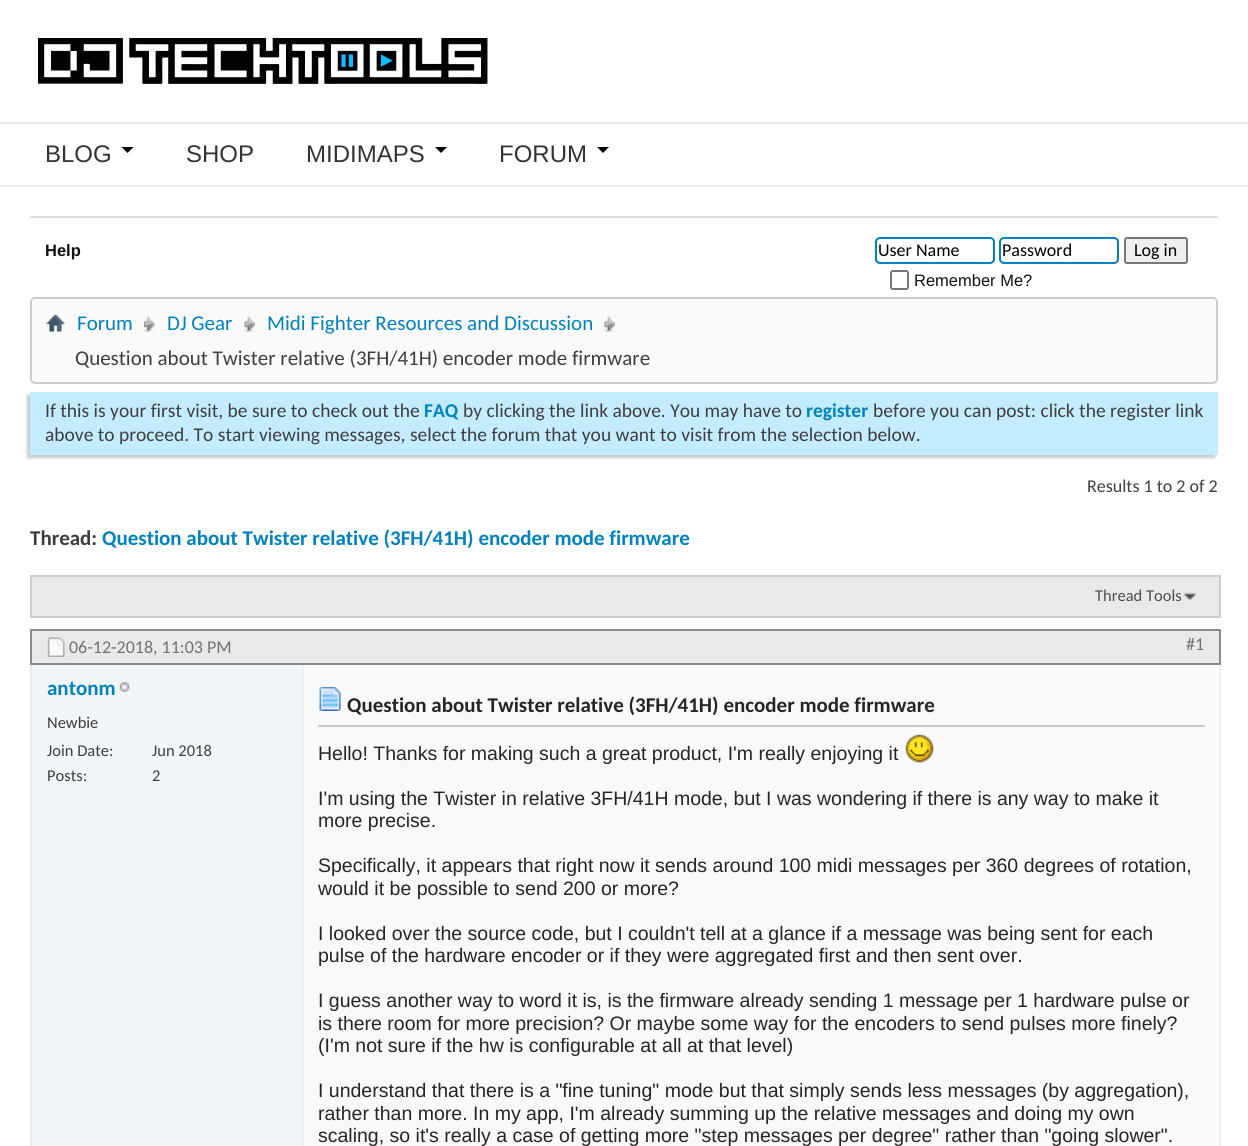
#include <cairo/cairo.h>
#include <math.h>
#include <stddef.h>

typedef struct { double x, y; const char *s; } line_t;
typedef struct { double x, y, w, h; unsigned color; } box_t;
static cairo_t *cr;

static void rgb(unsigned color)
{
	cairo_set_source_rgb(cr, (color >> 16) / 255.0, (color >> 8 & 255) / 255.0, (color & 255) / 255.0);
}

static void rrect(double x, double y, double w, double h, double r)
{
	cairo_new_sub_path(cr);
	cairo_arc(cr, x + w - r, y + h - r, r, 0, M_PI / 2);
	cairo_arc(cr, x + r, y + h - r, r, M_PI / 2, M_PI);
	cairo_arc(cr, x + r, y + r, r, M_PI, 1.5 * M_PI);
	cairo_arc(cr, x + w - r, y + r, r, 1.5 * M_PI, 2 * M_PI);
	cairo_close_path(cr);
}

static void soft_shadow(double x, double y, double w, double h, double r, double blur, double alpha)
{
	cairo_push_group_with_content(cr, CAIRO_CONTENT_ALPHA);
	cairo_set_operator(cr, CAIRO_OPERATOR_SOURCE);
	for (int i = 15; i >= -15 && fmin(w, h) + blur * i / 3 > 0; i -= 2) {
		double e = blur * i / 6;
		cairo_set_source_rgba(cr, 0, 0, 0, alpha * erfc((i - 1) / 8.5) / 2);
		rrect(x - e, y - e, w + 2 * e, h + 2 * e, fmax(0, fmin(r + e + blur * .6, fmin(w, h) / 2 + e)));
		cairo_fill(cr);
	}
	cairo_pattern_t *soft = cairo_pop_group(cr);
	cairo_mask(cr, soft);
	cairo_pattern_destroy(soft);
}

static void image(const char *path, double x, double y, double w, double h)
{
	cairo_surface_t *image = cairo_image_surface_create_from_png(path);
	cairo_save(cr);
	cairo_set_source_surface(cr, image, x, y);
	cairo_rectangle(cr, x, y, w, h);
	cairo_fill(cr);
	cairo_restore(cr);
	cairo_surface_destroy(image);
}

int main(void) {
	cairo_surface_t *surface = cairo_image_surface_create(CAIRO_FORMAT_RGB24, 1248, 1146);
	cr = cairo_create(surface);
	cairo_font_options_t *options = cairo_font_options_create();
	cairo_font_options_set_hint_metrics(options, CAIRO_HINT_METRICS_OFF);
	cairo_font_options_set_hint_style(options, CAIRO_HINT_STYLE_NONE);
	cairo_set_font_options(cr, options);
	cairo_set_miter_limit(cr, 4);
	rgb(0xffffff);
	cairo_paint(cr);
	image("img/1.png", 38, 38, 450, 46);
	rgb(0xe6e6e6);
	cairo_rectangle(cr, 0, 122, 1248, 2);
	cairo_fill(cr);
	cairo_rectangle(cr, 0, 185, 1248, 2);
	cairo_fill(cr);
	rgb(0x000000);
	cairo_new_path(cr);
	cairo_move_to(cr, 121.5, 147);
	cairo_line_to(cr, 133.5, 147);
	cairo_line_to(cr, 127.5, 153);
	cairo_close_path(cr);
	cairo_fill(cr);
	cairo_new_path(cr);
	cairo_move_to(cr, 435, 147);
	cairo_line_to(cr, 447, 147);
	cairo_line_to(cr, 441, 153);
	cairo_close_path(cr);
	cairo_fill(cr);
	cairo_new_path(cr);
	cairo_move_to(cr, 597, 147);
	cairo_line_to(cr, 609, 147);
	cairo_line_to(cr, 603, 153);
	cairo_close_path(cr);
	cairo_fill(cr);
	rgb(0xdddddd);
	cairo_rectangle(cr, 30, 216, 1188, 2);
	cairo_fill(cr);
	rrect(876, 238, 118, 25, 4);
	rgb(0x0082bf);
	cairo_stroke(cr);
	rrect(1000, 238, 118, 25, 4);
	cairo_stroke(cr);
	rgb(0xefefef);
	rrect(1125, 238, 62, 25, 2);
	cairo_fill_preserve(cr);
	rgb(0x767676);
	cairo_stroke(cr);
	rrect(891, 271, 17, 18, 2);
	cairo_stroke(cr);
	rgb(0xfafafa);
	rrect(31, 298, 1186, 85, 4);
	cairo_fill_preserve(cr);
	rgb(0xcccccc);
	cairo_stroke(cr);
	image("img/2.png", 46, 314, 19, 18);
	image("img/3.png", 144, 316, 11, 16);
	image("img/4.png", 244, 316, 11, 16);
	image("img/5.png", 604, 316, 11, 16);
	rgb(0xc8c8c8);
	soft_shadow(27, 395, 1188, 63, 0, 1.5, 1);
	rgb(0xc4ecff);
	cairo_rectangle(cr, 30, 392, 1188, 63);
	cairo_fill(cr);
	rgb(0xe9e9e9);
	cairo_rectangle(cr, 31, 576, 1189, 41);
	cairo_fill_preserve(cr);
	rgb(0xcecece);
	cairo_stroke(cr);
	image("img/6.png", 1183, 592, 14, 8);
	cairo_rectangle(cr, 31, 630, 1189, 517);
	rgb(0xe9e9e9);
	cairo_stroke(cr);
	cairo_rectangle(cr, 31, 630, 1189, 34);
	cairo_fill_preserve(cr);
	rgb(0x8c8c8c);
	cairo_stroke(cr);
	image("img/7.png", 47, 637, 18, 20);
	rgb(0xf2f6f8);
	cairo_rectangle(cr, 32, 665, 270, 481);
	cairo_fill(cr);
	image("img/8.png", 119, 682, 11, 10);
	{
		static const box_t items[] = {
			{304, 665, 916, 481, 0xf9f9f9},
			{302, 665, 2, 481, 0xefefef},
			{318, 725, 887, 2, 0xc8c8c8},
		};
		for (size_t i = 0; i < sizeof items / sizeof *items; i++) {
			rgb(items[i].color);
			cairo_rectangle(cr, items[i].x, items[i].y, items[i].w, items[i].h);
			cairo_fill(cr);
		}
	}
	image("img/9.png", 319, 687, 22, 24);
	image("img/10.png", 905, 734, 29, 29);
	cairo_select_font_face(cr, "Liberation Sans", CAIRO_FONT_SLANT_NORMAL, CAIRO_FONT_WEIGHT_NORMAL);
	cairo_set_font_size(cr, 24);
	rgb(0x333333);
	{
		static const line_t items[] = {
			{45, 162, "BLOG"},
			{186, 162, "SHOP"},
			{306, 162, "MIDIMAPS"},
			{499, 162, "FORUM"},
		};
		for (size_t i = 0; i < sizeof items / sizeof *items; i++) {
			cairo_move_to(cr, items[i].x, items[i].y);
			cairo_show_text(cr, items[i].s);
		}
	}
	cairo_select_font_face(cr, "Liberation Sans", CAIRO_FONT_SLANT_NORMAL, CAIRO_FONT_WEIGHT_BOLD);
	cairo_set_font_size(cr, 16.5);
	rgb(0x111111);
	cairo_move_to(cr, 45, 256);
	cairo_show_text(cr, "Help");
	cairo_select_font_face(cr, "Carlito", CAIRO_FONT_SLANT_NORMAL, CAIRO_FONT_WEIGHT_NORMAL);
	cairo_set_font_size(cr, 18);
	rgb(0x000000);
	{
		static const line_t items[] = {
			{878, 256, "User Name"},
			{1002, 256, "Password"},
			{1134, 256, "Log in"},
		};
		for (size_t i = 0; i < sizeof items / sizeof *items; i++) {
			cairo_move_to(cr, items[i].x, items[i].y);
			cairo_show_text(cr, items[i].s);
		}
	}
	cairo_select_font_face(cr, "Liberation Sans", CAIRO_FONT_SLANT_NORMAL, CAIRO_FONT_WEIGHT_NORMAL);
	cairo_set_font_size(cr, 16.5);
	rgb(0x111111);
	cairo_move_to(cr, 914, 286);
	cairo_show_text(cr, "Remember Me?");
	cairo_select_font_face(cr, "Carlito", CAIRO_FONT_SLANT_NORMAL, CAIRO_FONT_WEIGHT_NORMAL);
	cairo_set_font_size(cr, 21);
	rgb(0x0082bf);
	{
		static const line_t items[] = {
			{77, 330, "Forum"},
			{167, 330, "DJ Gear"},
			{267, 330, "Midi Fighter Resources and Discussion"},
		};
		for (size_t i = 0; i < sizeof items / sizeof *items; i++) {
			cairo_move_to(cr, items[i].x, items[i].y);
			cairo_show_text(cr, items[i].s);
		}
	}
	rgb(0x3e3e3e);
	cairo_move_to(cr, 75, 365);
	cairo_show_text(cr, "Question about Twister relative (3FH/41H) encoder mode firmware");
	cairo_set_font_size(cr, 19.5);
	cairo_move_to(cr, 45, 417);
	cairo_show_text(cr, "If this is your first visit, be sure to check out the");
	cairo_select_font_face(cr, "Carlito", CAIRO_FONT_SLANT_NORMAL, CAIRO_FONT_WEIGHT_BOLD);
	rgb(0x0082bf);
	cairo_move_to(cr, 424, 417);
	cairo_show_text(cr, "FAQ");
	cairo_select_font_face(cr, "Carlito", CAIRO_FONT_SLANT_NORMAL, CAIRO_FONT_WEIGHT_NORMAL);
	rgb(0x3e3e3e);
	cairo_move_to(cr, 463, 417);
	cairo_show_text(cr, "by clicking the link above. You may have to");
	cairo_select_font_face(cr, "Carlito", CAIRO_FONT_SLANT_NORMAL, CAIRO_FONT_WEIGHT_BOLD);
	rgb(0x0082bf);
	cairo_move_to(cr, 806, 417);
	cairo_show_text(cr, "register");
	cairo_select_font_face(cr, "Carlito", CAIRO_FONT_SLANT_NORMAL, CAIRO_FONT_WEIGHT_NORMAL);
	rgb(0x3e3e3e);
	cairo_move_to(cr, 873, 417);
	cairo_show_text(cr, "before you can post: click the register link");
	cairo_move_to(cr, 45, 441);
	cairo_show_text(cr, "above to proceed. To start viewing messages, select the forum that you want to visit from the selection below.");
	cairo_set_font_size(cr, 18);
	cairo_move_to(cr, 1087, 492);
	cairo_show_text(cr, "Results 1 to 2 of 2");
	cairo_select_font_face(cr, "Carlito", CAIRO_FONT_SLANT_NORMAL, CAIRO_FONT_WEIGHT_BOLD);
	cairo_set_font_size(cr, 21);
	cairo_move_to(cr, 30, 545);
	cairo_show_text(cr, "Thread:");
	rgb(0x0082bf);
	cairo_move_to(cr, 102, 545);
	cairo_show_text(cr, "Question about Twister relative (3FH/41H) encoder mode firmware");
	cairo_select_font_face(cr, "Carlito", CAIRO_FONT_SLANT_NORMAL, CAIRO_FONT_WEIGHT_NORMAL);
	cairo_set_font_size(cr, 16.5);
	rgb(0x4e4e4e);
	cairo_move_to(cr, 1095, 601);
	cairo_show_text(cr, "Thread Tools");
	cairo_set_font_size(cr, 18);
	rgb(0x727272);
	cairo_move_to(cr, 69, 653);
	cairo_show_text(cr, "06-12-2018, 11:03 PM");
	cairo_move_to(cr, 1186, 650);
	cairo_show_text(cr, "#1");
	cairo_select_font_face(cr, "Carlito", CAIRO_FONT_SLANT_NORMAL, CAIRO_FONT_WEIGHT_BOLD);
	cairo_set_font_size(cr, 21);
	rgb(0x0082bf);
	cairo_move_to(cr, 47, 695);
	cairo_show_text(cr, "antonm");
	cairo_select_font_face(cr, "Carlito", CAIRO_FONT_SLANT_NORMAL, CAIRO_FONT_WEIGHT_NORMAL);
	cairo_set_font_size(cr, 16.5);
	rgb(0x3e3e3e);
	{
		static const line_t items[] = {
			{47, 728, "Newbie"},
			{47, 756, "Join Date:"},
			{152, 756, "Jun 2018"},
			{47, 781, "Posts:"},
			{152, 781, "2"},
		};
		for (size_t i = 0; i < sizeof items / sizeof *items; i++) {
			cairo_move_to(cr, items[i].x, items[i].y);
			cairo_show_text(cr, items[i].s);
		}
	}
	cairo_select_font_face(cr, "Carlito", CAIRO_FONT_SLANT_NORMAL, CAIRO_FONT_WEIGHT_BOLD);
	cairo_set_font_size(cr, 21);
	rgb(0x252525);
	cairo_move_to(cr, 347, 712);
	cairo_show_text(cr, "Question about Twister relative (3FH/41H) encoder mode firmware");
	cairo_select_font_face(cr, "Liberation Sans", CAIRO_FONT_SLANT_NORMAL, CAIRO_FONT_WEIGHT_NORMAL);
	cairo_set_font_size(cr, 19.5);
	{
		static const line_t items[] = {
			{318, 760, "Hello! Thanks for making such a great product, I'm really enjoying it"},
			{318, 805, "I'm using the Twister in relative 3FH/41H mode, but I was wondering if there is any way to make it"},
			{318, 827, "more precise."},
			{318, 872, "Specifically, it appears that right now it sends around 100 midi messages per 360 degrees of rotation,"},
			{318, 895, "would it be possible to send 200 or more?"},
			{318, 940, "I looked over the source code, but I couldn't tell at a glance if a message was being sent for each"},
			{318, 962, "pulse of the hardware encoder or if they were aggregated first and then sent over."},
			{318, 1007, "I guess another way to word it is, is the firmware already sending 1 message per 1 hardware pulse or"},
			{318, 1030, "is there room for more precision? Or maybe some way for the encoders to send pulses more finely?"},
			{318, 1052, "(I'm not sure if the hw is configurable at all at that level)"},
			{318, 1097, "I understand that there is a \"fine tuning\" mode but that simply sends less messages (by aggregation),"},
			{318, 1120, "rather than more. In my app, I'm already summing up the relative messages and doing my own"},
			{318, 1142, "scaling, so it's really a case of getting more \"step messages per degree\" rather than \"going slower\"."},
		};
		for (size_t i = 0; i < sizeof items / sizeof *items; i++) {
			cairo_move_to(cr, items[i].x, items[i].y);
			cairo_show_text(cr, items[i].s);
		}
	}
	cairo_surface_write_to_png(surface, "page.png");
	cairo_font_options_destroy(options);
	cairo_destroy(cr);
	cairo_surface_destroy(surface);
	return 0;
}
